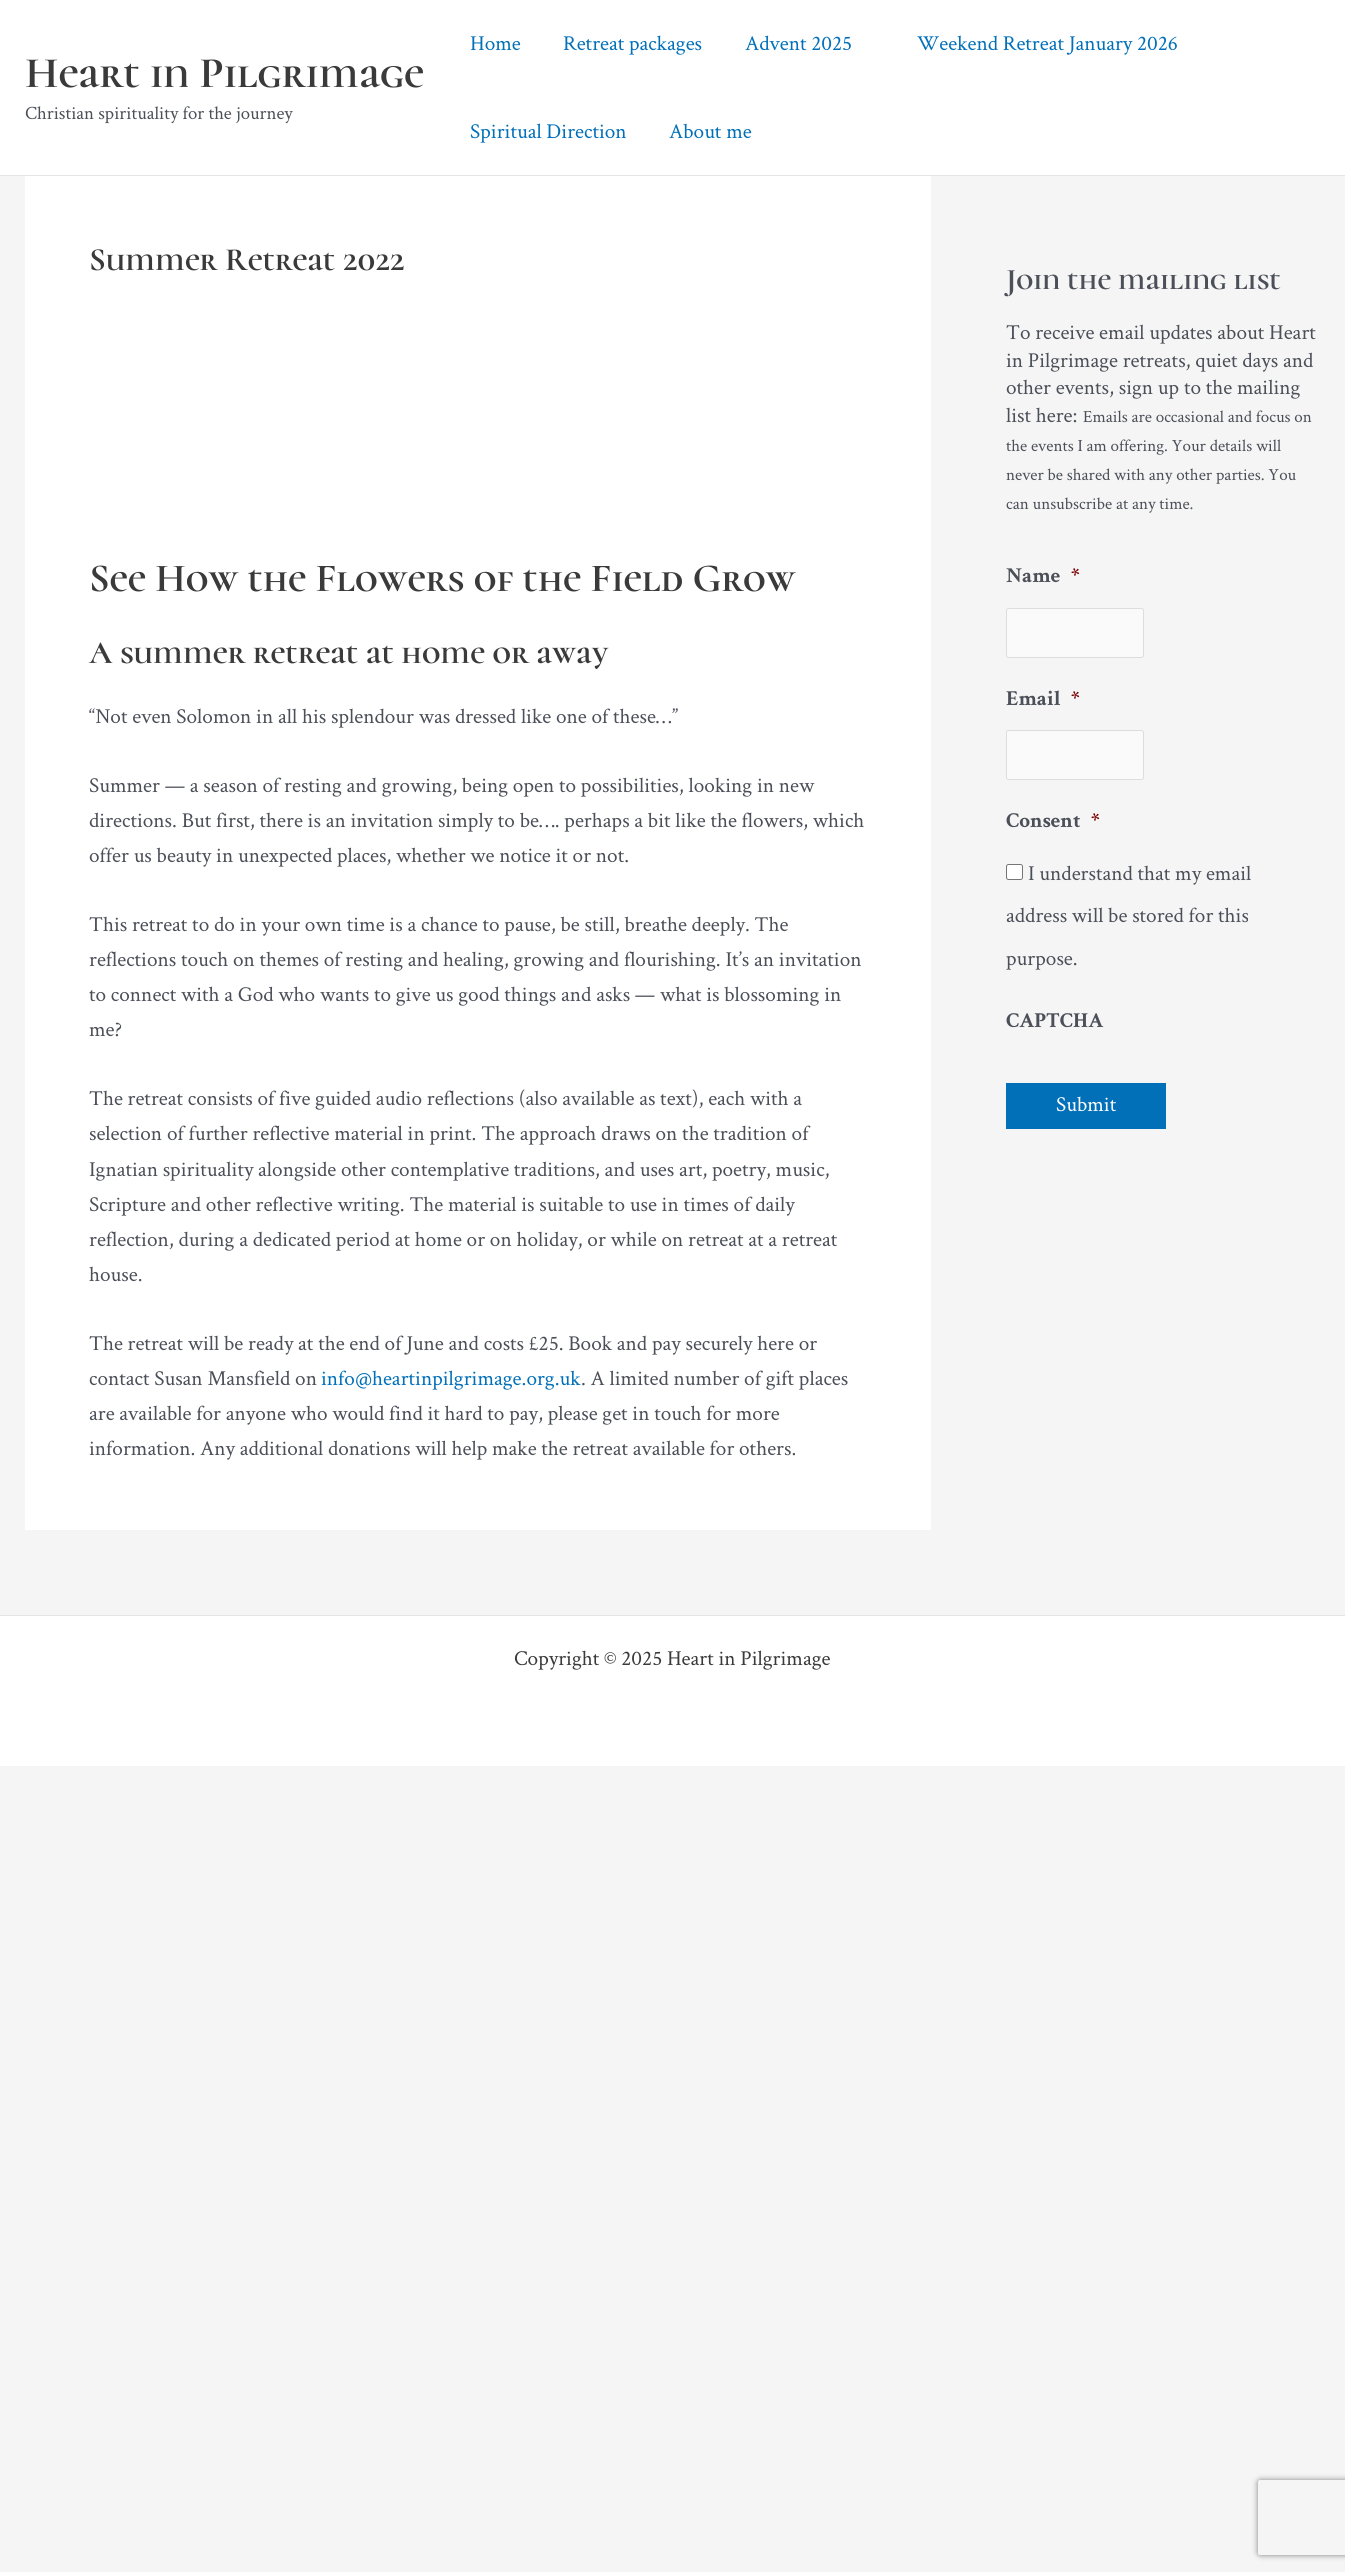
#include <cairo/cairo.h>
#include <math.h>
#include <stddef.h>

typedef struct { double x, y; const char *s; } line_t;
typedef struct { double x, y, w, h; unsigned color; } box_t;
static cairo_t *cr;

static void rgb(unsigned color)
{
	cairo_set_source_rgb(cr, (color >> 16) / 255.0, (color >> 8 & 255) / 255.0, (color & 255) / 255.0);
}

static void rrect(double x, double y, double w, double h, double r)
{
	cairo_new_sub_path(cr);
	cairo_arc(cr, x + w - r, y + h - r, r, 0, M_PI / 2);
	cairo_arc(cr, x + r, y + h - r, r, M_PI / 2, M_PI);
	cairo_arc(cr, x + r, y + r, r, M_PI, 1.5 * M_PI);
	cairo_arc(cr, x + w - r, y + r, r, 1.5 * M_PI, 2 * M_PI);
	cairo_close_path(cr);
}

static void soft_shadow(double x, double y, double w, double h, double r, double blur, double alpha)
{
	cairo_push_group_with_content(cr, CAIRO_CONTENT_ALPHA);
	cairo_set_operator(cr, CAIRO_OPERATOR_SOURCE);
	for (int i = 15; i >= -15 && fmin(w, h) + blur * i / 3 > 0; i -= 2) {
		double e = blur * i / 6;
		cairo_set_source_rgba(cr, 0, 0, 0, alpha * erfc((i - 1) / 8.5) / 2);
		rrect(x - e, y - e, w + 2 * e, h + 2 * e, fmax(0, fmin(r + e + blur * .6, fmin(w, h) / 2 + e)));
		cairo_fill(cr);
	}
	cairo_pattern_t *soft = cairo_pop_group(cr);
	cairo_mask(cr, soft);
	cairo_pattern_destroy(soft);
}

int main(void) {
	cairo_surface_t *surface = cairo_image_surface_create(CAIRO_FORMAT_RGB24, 1345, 2572);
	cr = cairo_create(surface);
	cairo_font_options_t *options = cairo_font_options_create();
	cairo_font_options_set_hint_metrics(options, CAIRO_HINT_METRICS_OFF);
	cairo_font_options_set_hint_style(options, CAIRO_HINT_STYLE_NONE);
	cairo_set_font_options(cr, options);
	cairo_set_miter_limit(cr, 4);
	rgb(0xf5f5f5);
	cairo_paint(cr);
	{
		static const box_t items[] = {
			{0, 0, 1345, 175, 0xffffff},
			{0, 175, 1345, 1, 0xe5e5e5},
			{25, 176, 906, 1354, 0xffffff},
		};
		for (size_t i = 0; i < sizeof items / sizeof *items; i++) {
			rgb(items[i].color);
			cairo_rectangle(cr, items[i].x, items[i].y, items[i].w, items[i].h);
			cairo_fill(cr);
		}
	}
	rgb(0xfafafa);
	rrect(1006.5, 608.5, 137, 49, 2);
	cairo_fill_preserve(cr);
	rgb(0xdddddd);
	cairo_set_line_width(cr, 1);
	cairo_stroke(cr);
	rgb(0xfafafa);
	rrect(1006.5, 730.5, 137, 49, 2);
	cairo_fill_preserve(cr);
	rgb(0xdddddd);
	cairo_stroke(cr);
	rgb(0xffffff);
	rrect(1006.5, 864.5, 16, 15, 2);
	cairo_fill_preserve(cr);
	rgb(0x767676);
	cairo_stroke(cr);
	{
		static const box_t items[] = {
			{1006, 1083, 160, 46, 0x0170b9},
			{0, 1616, 1345, 150, 0xffffff},
			{0, 1615, 1345, 1, 0xe5e5e5},
		};
		for (size_t i = 0; i < sizeof items / sizeof *items; i++) {
			rgb(items[i].color);
			cairo_rectangle(cr, items[i].x, items[i].y, items[i].w, items[i].h);
			cairo_fill(cr);
		}
	}
	cairo_save(cr);
	cairo_set_fill_rule(cr, CAIRO_FILL_RULE_EVEN_ODD);
	cairo_new_path(cr);
	cairo_move_to(cr, 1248, 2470);
	cairo_line_to(cr, 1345, 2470);
	cairo_line_to(cr, 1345, 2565);
	cairo_line_to(cr, 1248, 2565);
	cairo_close_path(cr);
	cairo_move_to(cr, 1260.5, 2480);
	cairo_line_to(cr, 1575.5, 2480);
	cairo_curve_to(cr, 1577, 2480, 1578, 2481, 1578, 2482.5);
	cairo_line_to(cr, 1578, 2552.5);
	cairo_curve_to(cr, 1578, 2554, 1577, 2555, 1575.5, 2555);
	cairo_line_to(cr, 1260.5, 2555);
	cairo_curve_to(cr, 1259, 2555, 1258, 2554, 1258, 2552.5);
	cairo_line_to(cr, 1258, 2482.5);
	cairo_curve_to(cr, 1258, 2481, 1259, 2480, 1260.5, 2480);
	cairo_close_path(cr);
	cairo_clip(cr);
	rgb(0x808080);
	soft_shadow(1258, 2480, 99, 75, 2.5, 3, 1);
	cairo_restore(cr);
	cairo_select_font_face(cr, "Cormorant Unicase", CAIRO_FONT_SLANT_NORMAL, CAIRO_FONT_WEIGHT_BOLD);
	cairo_set_font_size(cr, 43.75);
	rgb(0x3a3a3a);
	cairo_move_to(cr, 25, 87);
	cairo_show_text(cr, "Heart in Pilgrimage");
	cairo_select_font_face(cr, "Crimson Text", CAIRO_FONT_SLANT_NORMAL, CAIRO_FONT_WEIGHT_NORMAL);
	cairo_set_font_size(cr, 18.75);
	rgb(0x4b4f58);
	cairo_move_to(cr, 25, 119);
	cairo_show_text(cr, "Christian spirituality for the journey");
	cairo_set_font_size(cr, 21.25);
	rgb(0x0170b9);
	{
		static const line_t items[] = {
			{470, 50, "Home"},
			{563, 50, "Retreat packages"},
			{745, 50, "Advent 2025"},
			{917, 50, "Weekend Retreat January 2026"},
			{470, 138, "Spiritual Direction"},
			{669, 138, "About me"},
		};
		for (size_t i = 0; i < sizeof items / sizeof *items; i++) {
			cairo_move_to(cr, items[i].x, items[i].y);
			cairo_show_text(cr, items[i].s);
		}
	}
	cairo_select_font_face(cr, "Cormorant Unicase", CAIRO_FONT_SLANT_NORMAL, CAIRO_FONT_WEIGHT_BOLD);
	cairo_set_font_size(cr, 32.5);
	rgb(0x3a3a3a);
	cairo_move_to(cr, 89, 270);
	cairo_show_text(cr, "Summer Retreat 2022");
	cairo_set_font_size(cr, 40);
	cairo_move_to(cr, 89, 591);
	cairo_show_text(cr, "See How the Flowers of the Field Grow");
	cairo_set_font_size(cr, 32.5);
	cairo_move_to(cr, 89, 663);
	cairo_show_text(cr, "A summer retreat at home or away");
	cairo_select_font_face(cr, "Crimson Text", CAIRO_FONT_SLANT_NORMAL, CAIRO_FONT_WEIGHT_NORMAL);
	cairo_set_font_size(cr, 21.25);
	rgb(0x4b4f58);
	{
		static const line_t items[] = {
			{89, 723, "“Not even Solomon in all his splendour was dressed like one of these…”"},
			{89, 792, "Summer — a season of resting and growing, being open to possibilities, looking in new"},
			{89, 827, "directions. But first, there is an invitation simply to be…. perhaps a bit like the flowers, which"},
			{89, 862, "offer us beauty in unexpected places, whether we notice it or not."},
			{89, 931, "This retreat to do in your own time is a chance to pause, be still, breathe deeply. The"},
			{89, 966, "reflections touch on themes of resting and healing, growing and flourishing. It’s an invitation"},
			{89, 1001, "to connect with a God who wants to give us good things and asks — what is blossoming in"},
			{89, 1036, "me?"},
			{89, 1105, "The retreat consists of five guided audio reflections (also available as text), each with a"},
			{89, 1140, "selection of further reflective material in print. The approach draws on the tradition of"},
			{89, 1176, "Ignatian spirituality alongside other contemplative traditions, and uses art, poetry, music,"},
			{89, 1211, "Scripture and other reflective writing. The material is suitable to use in times of daily"},
			{89, 1246, "reflection, during a dedicated period at home or on holiday, or while on retreat at a retreat"},
			{89, 1281, "house."},
			{89, 1350, "The retreat will be ready at the end of June and costs £25. Book and pay securely here or"},
			{89, 1385, "contact Susan Mansfield on"},
		};
		for (size_t i = 0; i < sizeof items / sizeof *items; i++) {
			cairo_move_to(cr, items[i].x, items[i].y);
			cairo_show_text(cr, items[i].s);
		}
	}
	rgb(0x0170b9);
	cairo_move_to(cr, 321, 1385);
	cairo_show_text(cr, "info@heartinpilgrimage.org.uk");
	rgb(0x4b4f58);
	{
		static const line_t items[] = {
			{581, 1385, ". A limited number of gift places"},
			{89, 1420, "are available for anyone who would find it hard to pay, please get in touch for more"},
			{89, 1455, "information. Any additional donations will help make the retreat available for others."},
		};
		for (size_t i = 0; i < sizeof items / sizeof *items; i++) {
			cairo_move_to(cr, items[i].x, items[i].y);
			cairo_show_text(cr, items[i].s);
		}
	}
	cairo_select_font_face(cr, "Cormorant Unicase", CAIRO_FONT_SLANT_NORMAL, CAIRO_FONT_WEIGHT_BOLD);
	cairo_set_font_size(cr, 30);
	cairo_move_to(cr, 1006, 289);
	cairo_show_text(cr, "Join the mailing list");
	cairo_select_font_face(cr, "Crimson Text", CAIRO_FONT_SLANT_NORMAL, CAIRO_FONT_WEIGHT_NORMAL);
	cairo_set_font_size(cr, 21.25);
	{
		static const line_t items[] = {
			{1006, 339, "To receive email updates about Heart"},
			{1006, 367, "in Pilgrimage retreats, quiet days and"},
			{1006, 394, "other events, sign up to the mailing"},
			{1006, 422, "list here:"},
		};
		for (size_t i = 0; i < sizeof items / sizeof *items; i++) {
			cairo_move_to(cr, items[i].x, items[i].y);
			cairo_show_text(cr, items[i].s);
		}
	}
	cairo_set_font_size(cr, 17);
	{
		static const line_t items[] = {
			{1083, 422, "Emails are occasional and focus on"},
			{1006, 451, "the events I am offering. Your details will"},
			{1006, 480, "never be shared with any other parties. You"},
			{1006, 509, "can unsubscribe at any time."},
		};
		for (size_t i = 0; i < sizeof items / sizeof *items; i++) {
			cairo_move_to(cr, items[i].x, items[i].y);
			cairo_show_text(cr, items[i].s);
		}
	}
	cairo_select_font_face(cr, "Crimson Text", CAIRO_FONT_SLANT_NORMAL, CAIRO_FONT_WEIGHT_BOLD);
	cairo_set_font_size(cr, 21.25);
	cairo_move_to(cr, 1006, 582);
	cairo_show_text(cr, "Name");
	rgb(0x790000);
	cairo_move_to(cr, 1071, 582);
	cairo_show_text(cr, "*");
	rgb(0x4b4f58);
	cairo_move_to(cr, 1006, 705);
	cairo_show_text(cr, "Email");
	rgb(0x790000);
	cairo_move_to(cr, 1071, 705);
	cairo_show_text(cr, "*");
	rgb(0x4b4f58);
	cairo_move_to(cr, 1006, 827);
	cairo_show_text(cr, "Consent");
	rgb(0x790000);
	cairo_move_to(cr, 1091, 827);
	cairo_show_text(cr, "*");
	cairo_select_font_face(cr, "Crimson Text", CAIRO_FONT_SLANT_NORMAL, CAIRO_FONT_WEIGHT_NORMAL);
	rgb(0x4b4f58);
	{
		static const line_t items[] = {
			{1028, 880, "I understand that my email"},
			{1006, 922, "address will be stored for this"},
			{1006, 965, "purpose."},
		};
		for (size_t i = 0; i < sizeof items / sizeof *items; i++) {
			cairo_move_to(cr, items[i].x, items[i].y);
			cairo_show_text(cr, items[i].s);
		}
	}
	cairo_select_font_face(cr, "Crimson Text", CAIRO_FONT_SLANT_NORMAL, CAIRO_FONT_WEIGHT_BOLD);
	cairo_move_to(cr, 1006, 1027);
	cairo_show_text(cr, "CAPTCHA");
	cairo_select_font_face(cr, "Crimson Text", CAIRO_FONT_SLANT_NORMAL, CAIRO_FONT_WEIGHT_NORMAL);
	rgb(0xffffff);
	cairo_move_to(cr, 1056, 1111);
	cairo_show_text(cr, "Submit");
	rgb(0x3a3a3a);
	cairo_move_to(cr, 514, 1665);
	cairo_show_text(cr, "Copyright © 2025 Heart in Pilgrimage");
	cairo_surface_write_to_png(surface, "page.png");
	cairo_font_options_destroy(options);
	cairo_destroy(cr);
	cairo_surface_destroy(surface);
	return 0;
}
